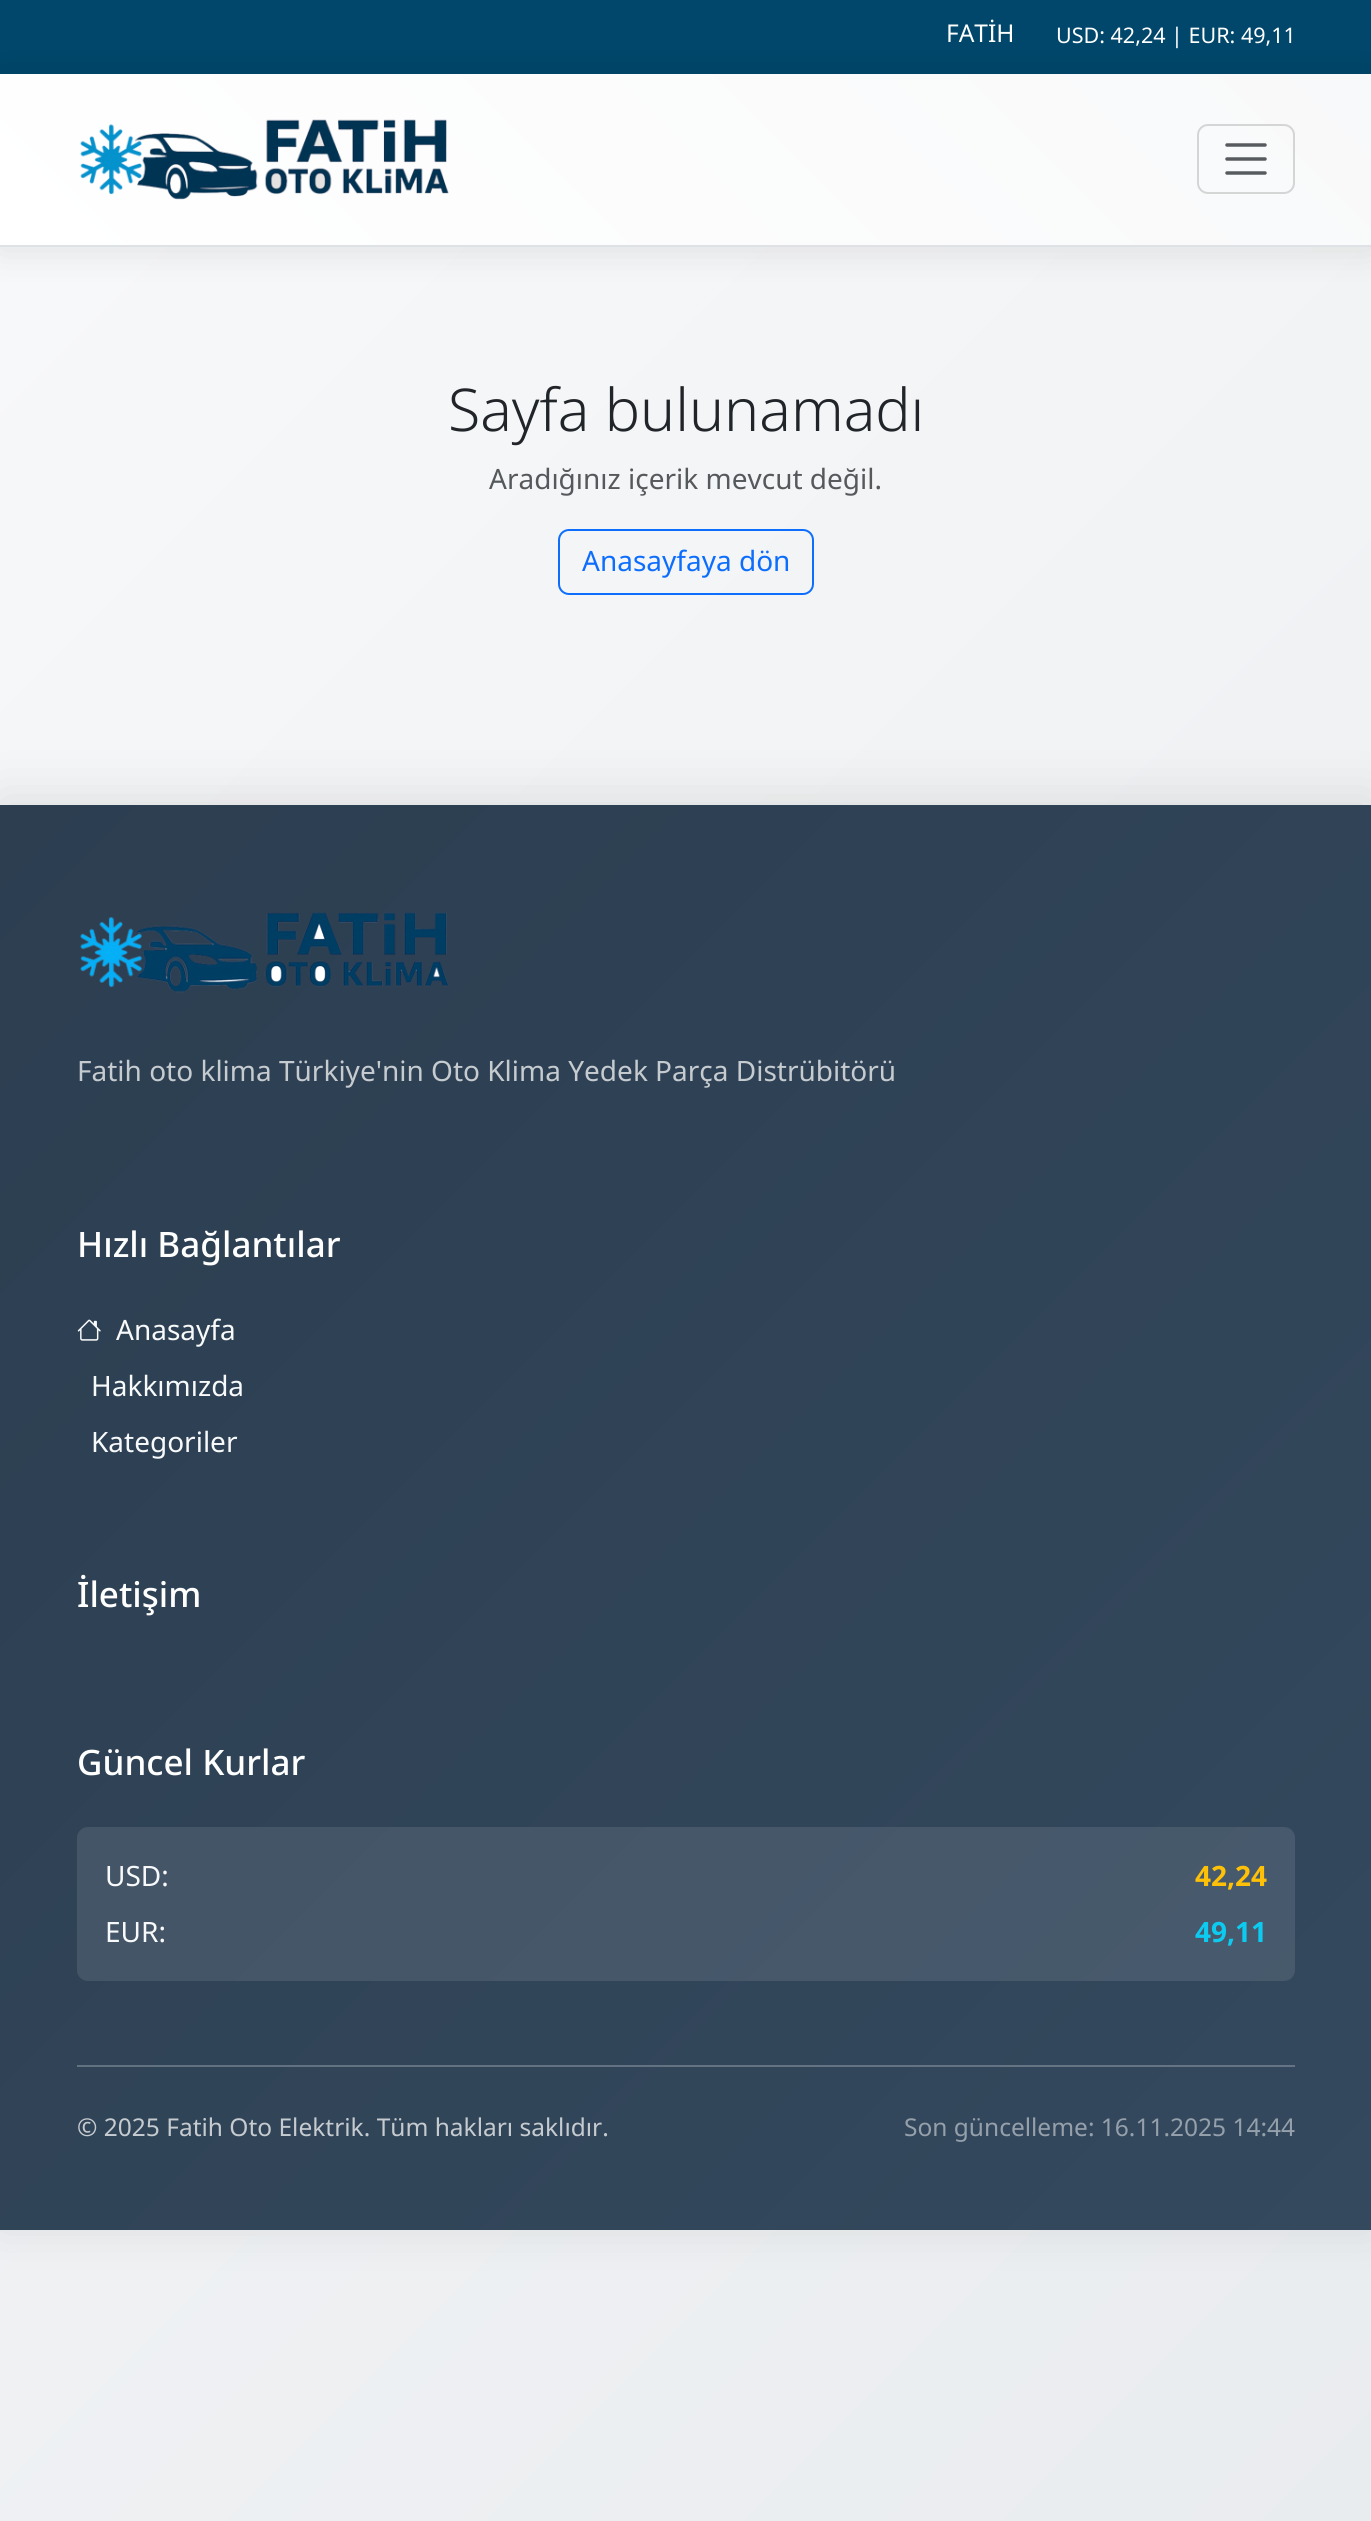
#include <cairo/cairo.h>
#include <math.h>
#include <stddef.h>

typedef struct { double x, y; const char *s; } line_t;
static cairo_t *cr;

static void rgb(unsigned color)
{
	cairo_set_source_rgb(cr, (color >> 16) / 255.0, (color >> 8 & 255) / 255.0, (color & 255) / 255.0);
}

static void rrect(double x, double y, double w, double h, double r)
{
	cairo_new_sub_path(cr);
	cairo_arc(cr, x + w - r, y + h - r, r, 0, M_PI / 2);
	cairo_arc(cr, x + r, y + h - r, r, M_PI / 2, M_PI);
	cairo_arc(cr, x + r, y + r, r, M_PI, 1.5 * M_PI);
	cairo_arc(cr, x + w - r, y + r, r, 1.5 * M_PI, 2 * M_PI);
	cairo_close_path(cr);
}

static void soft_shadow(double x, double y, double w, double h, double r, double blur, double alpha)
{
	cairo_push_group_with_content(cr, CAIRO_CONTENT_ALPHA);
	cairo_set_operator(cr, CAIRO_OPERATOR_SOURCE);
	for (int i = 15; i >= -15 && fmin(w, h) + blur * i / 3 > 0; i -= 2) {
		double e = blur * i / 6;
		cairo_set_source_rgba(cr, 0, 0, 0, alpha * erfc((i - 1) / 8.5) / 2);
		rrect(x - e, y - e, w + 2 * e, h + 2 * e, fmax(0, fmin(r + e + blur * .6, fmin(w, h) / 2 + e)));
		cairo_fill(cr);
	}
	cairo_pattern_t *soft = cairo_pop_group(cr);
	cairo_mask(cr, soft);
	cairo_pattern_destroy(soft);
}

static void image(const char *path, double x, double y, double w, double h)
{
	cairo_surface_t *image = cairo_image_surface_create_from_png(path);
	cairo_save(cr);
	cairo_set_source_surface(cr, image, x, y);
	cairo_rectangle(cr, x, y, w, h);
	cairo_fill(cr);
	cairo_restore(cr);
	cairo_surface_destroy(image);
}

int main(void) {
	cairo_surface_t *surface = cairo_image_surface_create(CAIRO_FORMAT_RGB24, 1371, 2521);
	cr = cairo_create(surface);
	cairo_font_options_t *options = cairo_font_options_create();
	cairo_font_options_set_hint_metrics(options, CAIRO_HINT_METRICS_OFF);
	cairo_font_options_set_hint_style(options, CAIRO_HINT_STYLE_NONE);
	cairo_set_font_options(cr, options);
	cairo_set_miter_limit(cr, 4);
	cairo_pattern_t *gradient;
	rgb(0xffffff);
	cairo_paint(cr);
	gradient = cairo_pattern_create_linear(-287, 287, 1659, 2234);
	cairo_pattern_add_color_stop_rgba(gradient, 0, 0.973, 0.976, 0.98, 1);
	cairo_pattern_add_color_stop_rgba(gradient, 1, 0.914, 0.925, 0.937, 1);
	cairo_set_source(cr, gradient);
	cairo_pattern_destroy(gradient);
	cairo_rectangle(cr, 0, 247, 1371, 2274);
	cairo_fill(cr);
	rgb(0x00476b);
	cairo_rectangle(cr, 0, 0, 1371, 74);
	cairo_fill(cr);
	rgb(0x000000);
	soft_shadow(0, 77, 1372, 173, 0, 17.5, 0.1);
	gradient = cairo_pattern_create_linear(300, 545, 1072, -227);
	cairo_pattern_add_color_stop_rgba(gradient, 0, 1, 1, 1, 1);
	cairo_pattern_add_color_stop_rgba(gradient, 1, 0.973, 0.976, 0.98, 1);
	cairo_set_source(cr, gradient);
	cairo_pattern_destroy(gradient);
	cairo_rectangle(cr, 0, 74, 1371, 171);
	cairo_fill(cr);
	rgb(0xdee2e6);
	cairo_rectangle(cr, 0, 245, 1371, 2);
	cairo_fill(cr);
	image("img/1.png", 80, 119, 369, 81);
	rrect(1198, 125, 96, 68, 10);
	rgb(0xd4d5d5);
	cairo_stroke(cr);
	cairo_new_path(cr);
	cairo_move_to(cr, 1227, 145);
	cairo_line_to(cr, 1265, 145);
	cairo_move_to(cr, 1227, 159);
	cairo_line_to(cr, 1265, 159);
	cairo_move_to(cr, 1227, 173);
	cairo_line_to(cr, 1265, 173);
	rgb(0x575a5e);
	cairo_set_line_width(cr, 3.5);
	cairo_set_line_cap(cr, CAIRO_LINE_CAP_ROUND);
	cairo_stroke(cr);
	rrect(559, 530, 254, 64, 10);
	rgb(0x0d6efd);
	cairo_set_line_width(cr, 2);
	cairo_set_line_cap(cr, CAIRO_LINE_CAP_BUTT);
	cairo_stroke(cr);
	rgb(0x000000);
	soft_shadow(0, 798, 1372, 1425, 0, 26, 0.1);
	gradient = cairo_pattern_create_linear(-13, 818, 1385, 2216);
	cairo_pattern_add_color_stop_rgba(gradient, 0, 0.173, 0.243, 0.314, 1);
	cairo_pattern_add_color_stop_rgba(gradient, 1, 0.204, 0.286, 0.369, 1);
	cairo_set_source(cr, gradient);
	cairo_pattern_destroy(gradient);
	cairo_rectangle(cr, 0, 805, 1371, 1425);
	cairo_fill(cr);
	gradient = cairo_pattern_create_linear(-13, 818, 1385, 2216);
	cairo_pattern_add_color_stop_rgba(gradient, 0, 0.373, 0.427, 0.482, 1);
	cairo_pattern_add_color_stop_rgba(gradient, 1, 0.396, 0.459, 0.522, 1);
	cairo_set_source(cr, gradient);
	cairo_pattern_destroy(gradient);
	cairo_rectangle(cr, 77, 2065, 1218, 2);
	cairo_fill(cr);
	image("img/2.png", 80, 912, 369, 81);
	image("img/3.png", 77, 1319, 24, 22);
	cairo_set_source_rgba(cr, 1, 1, 1, 0.1);
	rrect(77, 1827, 1218, 154, 11);
	cairo_fill(cr);
	cairo_select_font_face(cr, "Noto Sans", CAIRO_FONT_SLANT_NORMAL, CAIRO_FONT_WEIGHT_NORMAL);
	cairo_set_font_size(cr, 24.5);
	rgb(0xffffff);
	cairo_move_to(cr, 946, 42);
	cairo_show_text(cr, "FATİH");
	cairo_set_font_size(cr, 21.5);
	cairo_move_to(cr, 1056, 43);
	cairo_show_text(cr, "USD: 42,24 | EUR: 49,11");
	cairo_select_font_face(cr, "Noto Sans Light", CAIRO_FONT_SLANT_NORMAL, CAIRO_FONT_WEIGHT_NORMAL);
	cairo_set_font_size(cr, 59);
	rgb(0x212529);
	cairo_move_to(cr, 448, 431);
	cairo_show_text(cr, "Sayfa bulunamadı");
	cairo_select_font_face(cr, "Noto Sans", CAIRO_FONT_SLANT_NORMAL, CAIRO_FONT_WEIGHT_NORMAL);
	cairo_set_font_size(cr, 28);
	rgb(0x56595c);
	cairo_move_to(cr, 489, 489);
	cairo_show_text(cr, "Aradığınız içerik mevcut değil.");
	rgb(0x0d6efd);
	cairo_move_to(cr, 582, 571);
	cairo_show_text(cr, "Anasayfaya dön");
	rgb(0xc6cbd0);
	cairo_move_to(cr, 77, 1081);
	cairo_show_text(cr, "Fatih oto klima Türkiye'nin Oto Klima Yedek Parça Distrübitörü");
	cairo_select_font_face(cr, "Noto Sans Medium", CAIRO_FONT_SLANT_NORMAL, CAIRO_FONT_WEIGHT_NORMAL);
	cairo_set_font_size(cr, 35);
	rgb(0xffffff);
	cairo_move_to(cr, 77, 1257);
	cairo_show_text(cr, "Hızlı Bağlantılar");
	cairo_select_font_face(cr, "Noto Sans", CAIRO_FONT_SLANT_NORMAL, CAIRO_FONT_WEIGHT_NORMAL);
	cairo_set_font_size(cr, 28);
	rgb(0xf8f9fa);
	{
		static const line_t items[] = {
			{116, 1340, "Anasayfa"},
			{91, 1396, "Hakkımızda"},
			{91, 1452, "Kategoriler"},
		};
		for (size_t i = 0; i < sizeof items / sizeof *items; i++) {
			cairo_move_to(cr, items[i].x, items[i].y);
			cairo_show_text(cr, items[i].s);
		}
	}
	cairo_select_font_face(cr, "Noto Sans Medium", CAIRO_FONT_SLANT_NORMAL, CAIRO_FONT_WEIGHT_NORMAL);
	cairo_set_font_size(cr, 35);
	rgb(0xffffff);
	cairo_move_to(cr, 77, 1607);
	cairo_show_text(cr, "İletişim");
	cairo_move_to(cr, 77, 1775);
	cairo_show_text(cr, "Güncel Kurlar");
	cairo_select_font_face(cr, "Noto Sans", CAIRO_FONT_SLANT_NORMAL, CAIRO_FONT_WEIGHT_NORMAL);
	cairo_set_font_size(cr, 28);
	rgb(0xf8f9fa);
	cairo_move_to(cr, 105, 1886);
	cairo_show_text(cr, "USD:");
	cairo_select_font_face(cr, "Noto Sans", CAIRO_FONT_SLANT_NORMAL, CAIRO_FONT_WEIGHT_BOLD);
	rgb(0xffc107);
	cairo_move_to(cr, 1195, 1886);
	cairo_show_text(cr, "42,24");
	cairo_select_font_face(cr, "Noto Sans", CAIRO_FONT_SLANT_NORMAL, CAIRO_FONT_WEIGHT_NORMAL);
	rgb(0xf8f9fa);
	cairo_move_to(cr, 105, 1942);
	cairo_show_text(cr, "EUR:");
	cairo_select_font_face(cr, "Noto Sans", CAIRO_FONT_SLANT_NORMAL, CAIRO_FONT_WEIGHT_BOLD);
	rgb(0x0dcaf0);
	cairo_move_to(cr, 1195, 1942);
	cairo_show_text(cr, "49,11");
	cairo_select_font_face(cr, "Noto Sans", CAIRO_FONT_SLANT_NORMAL, CAIRO_FONT_WEIGHT_NORMAL);
	cairo_set_font_size(cr, 24.5);
	rgb(0xc6cbd0);
	cairo_move_to(cr, 77, 2136);
	cairo_show_text(cr, "© 2025 Fatih Oto Elektrik. Tüm hakları saklıdır.");
	rgb(0x95a0ab);
	cairo_move_to(cr, 904, 2136);
	cairo_show_text(cr, "Son güncelleme: 16.11.2025 14:44");
	cairo_surface_write_to_png(surface, "page.png");
	cairo_font_options_destroy(options);
	cairo_destroy(cr);
	cairo_surface_destroy(surface);
	return 0;
}
